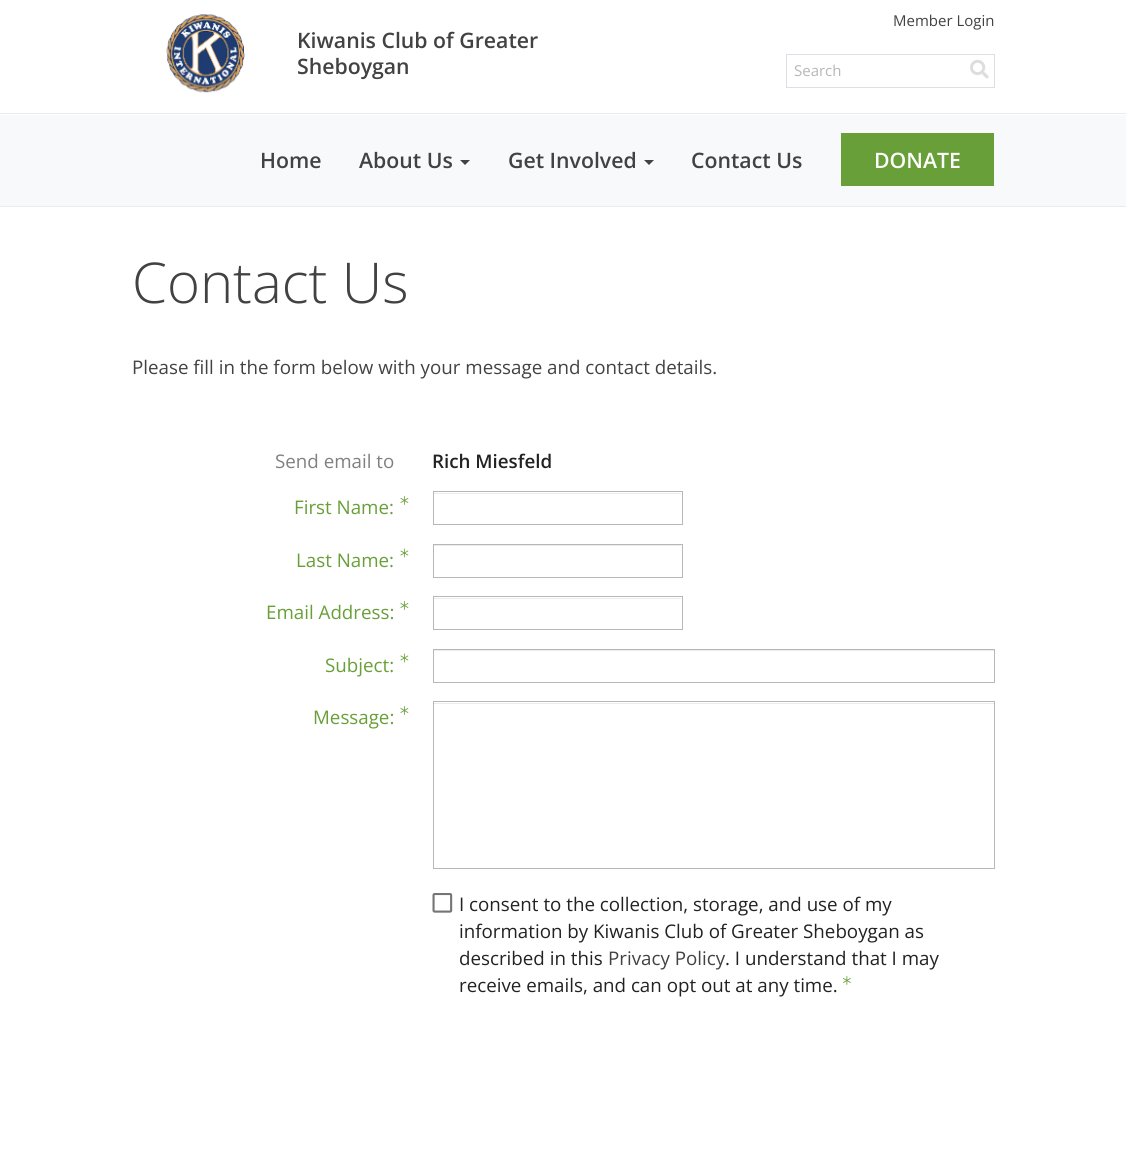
#include <cairo/cairo.h>
#include <math.h>
#include <stddef.h>

typedef struct { double x, y; const char *s; } line_t;
typedef struct { double x, y, w, h; unsigned color; } box_t;
static cairo_t *cr;

static void rgb(unsigned color)
{
	cairo_set_source_rgb(cr, (color >> 16) / 255.0, (color >> 8 & 255) / 255.0, (color & 255) / 255.0);
}

static void image(const char *path, double x, double y, double w, double h)
{
	cairo_surface_t *image = cairo_image_surface_create_from_png(path);
	cairo_save(cr);
	cairo_set_source_surface(cr, image, x, y);
	cairo_rectangle(cr, x, y, w, h);
	cairo_fill(cr);
	cairo_restore(cr);
	cairo_surface_destroy(image);
}

int main(void) {
	cairo_surface_t *surface = cairo_image_surface_create(CAIRO_FORMAT_RGB24, 1126, 1151);
	cr = cairo_create(surface);
	cairo_font_options_t *options = cairo_font_options_create();
	cairo_font_options_set_hint_metrics(options, CAIRO_HINT_METRICS_OFF);
	cairo_font_options_set_hint_style(options, CAIRO_HINT_STYLE_NONE);
	cairo_set_font_options(cr, options);
	cairo_set_miter_limit(cr, 4);
	rgb(0xffffff);
	cairo_paint(cr);
	image("img/1.png", 166, 14, 79, 79);
	cairo_rectangle(cr, 786.5, 54.5, 208, 33);
	rgb(0xdae0e5);
	cairo_set_line_width(cr, 1);
	cairo_stroke(cr);
	image("img/2.png", 970, 59, 19, 20);
	{
		static const box_t items[] = {
			{0, 113, 1126, 1, 0xe9ecef},
			{0, 115, 1126, 91, 0xf8f9fa},
			{0, 206, 1126, 1, 0xe9ecef},
		};
		for (size_t i = 0; i < sizeof items / sizeof *items; i++) {
			rgb(items[i].color);
			cairo_rectangle(cr, items[i].x, items[i].y, items[i].w, items[i].h);
			cairo_fill(cr);
		}
	}
	rgb(0x424242);
	cairo_new_path(cr);
	cairo_move_to(cr, 460, 160);
	cairo_line_to(cr, 470, 160);
	cairo_line_to(cr, 465, 165);
	cairo_close_path(cr);
	cairo_fill(cr);
	cairo_new_path(cr);
	cairo_move_to(cr, 644, 160);
	cairo_line_to(cr, 654, 160);
	cairo_line_to(cr, 649, 165);
	cairo_close_path(cr);
	cairo_fill(cr);
	rgb(0x689f38);
	cairo_rectangle(cr, 841, 133, 153, 53);
	cairo_fill(cr);
	image("img/3.png", 400, 496, 9, 9);
	rgb(0xececec);
	cairo_rectangle(cr, 434, 493, 247, 1);
	cairo_fill(cr);
	cairo_rectangle(cr, 433.5, 491.5, 249, 33);
	rgb(0xb7b7b7);
	cairo_stroke(cr);
	image("img/4.png", 400, 548, 9, 10);
	rgb(0xececec);
	cairo_rectangle(cr, 434, 545, 247, 1);
	cairo_fill(cr);
	cairo_rectangle(cr, 433.5, 544.5, 249, 33);
	rgb(0xb7b7b7);
	cairo_stroke(cr);
	image("img/3.png", 400, 601, 9, 9);
	rgb(0xececec);
	cairo_rectangle(cr, 434, 598, 247, 1);
	cairo_fill(cr);
	cairo_rectangle(cr, 433.5, 596.5, 249, 33);
	rgb(0xb7b7b7);
	cairo_stroke(cr);
	image("img/4.png", 400, 653, 9, 10);
	rgb(0xececec);
	cairo_rectangle(cr, 434, 650, 560, 1);
	cairo_fill(cr);
	cairo_rectangle(cr, 433.5, 649.5, 561, 33);
	rgb(0xb7b7b7);
	cairo_stroke(cr);
	image("img/3.png", 400, 706, 9, 9);
	rgb(0xececec);
	cairo_rectangle(cr, 434, 703, 560, 1);
	cairo_fill(cr);
	cairo_rectangle(cr, 433.5, 701.5, 561, 167);
	rgb(0xb7b7b7);
	cairo_stroke(cr);
	image("img/5.png", 432, 893, 21, 20);
	image("img/6.png", 843, 976, 8, 9);
	cairo_select_font_face(cr, "Open Sans SemiBold", CAIRO_FONT_SLANT_NORMAL, CAIRO_FONT_WEIGHT_NORMAL);
	cairo_set_font_size(cr, 21.25);
	rgb(0x424242);
	cairo_move_to(cr, 297, 48);
	cairo_show_text(cr, "Kiwanis Club of Greater");
	cairo_move_to(cr, 297, 74);
	cairo_show_text(cr, "Sheboygan");
	cairo_select_font_face(cr, "Open Sans", CAIRO_FONT_SLANT_NORMAL, CAIRO_FONT_WEIGHT_NORMAL);
	cairo_set_font_size(cr, 15);
	cairo_move_to(cr, 893, 26);
	cairo_show_text(cr, "Member Login");
	rgb(0xb7b7b7);
	cairo_move_to(cr, 794, 76);
	cairo_show_text(cr, "Search");
	cairo_select_font_face(cr, "Open Sans SemiBold", CAIRO_FONT_SLANT_NORMAL, CAIRO_FONT_WEIGHT_NORMAL);
	cairo_set_font_size(cr, 21.25);
	rgb(0x424242);
	{
		static const line_t items[] = {
			{260, 168, "Home"},
			{359, 168, "About Us"},
			{508, 168, "Get Involved"},
			{691, 168, "Contact Us"},
		};
		for (size_t i = 0; i < sizeof items / sizeof *items; i++) {
			cairo_move_to(cr, items[i].x, items[i].y);
			cairo_show_text(cr, items[i].s);
		}
	}
	rgb(0xffffff);
	cairo_move_to(cr, 874, 168);
	cairo_show_text(cr, "DONATE");
	cairo_select_font_face(cr, "Open Sans Light", CAIRO_FONT_SLANT_NORMAL, CAIRO_FONT_WEIGHT_NORMAL);
	cairo_set_font_size(cr, 56.25);
	rgb(0x424242);
	cairo_move_to(cr, 132, 303);
	cairo_show_text(cr, "Contact Us");
	cairo_select_font_face(cr, "Open Sans", CAIRO_FONT_SLANT_NORMAL, CAIRO_FONT_WEIGHT_NORMAL);
	cairo_set_font_size(cr, 18.75);
	cairo_move_to(cr, 132, 374);
	cairo_show_text(cr, "Please fill in the form below with your message and contact details.");
	rgb(0x808080);
	cairo_move_to(cr, 275, 468);
	cairo_show_text(cr, "Send email to");
	cairo_select_font_face(cr, "Open Sans SemiBold", CAIRO_FONT_SLANT_NORMAL, CAIRO_FONT_WEIGHT_NORMAL);
	rgb(0x222222);
	cairo_move_to(cr, 432, 468);
	cairo_show_text(cr, "Rich Miesfeld");
	cairo_select_font_face(cr, "Open Sans", CAIRO_FONT_SLANT_NORMAL, CAIRO_FONT_WEIGHT_NORMAL);
	rgb(0x689f38);
	{
		static const line_t items[] = {
			{294, 514, "First Name:"},
			{296, 567, "Last Name:"},
			{266, 619, "Email Address:"},
			{325, 672, "Subject:"},
			{313, 724, "Message:"},
		};
		for (size_t i = 0; i < sizeof items / sizeof *items; i++) {
			cairo_move_to(cr, items[i].x, items[i].y);
			cairo_show_text(cr, items[i].s);
		}
	}
	rgb(0x222222);
	{
		static const line_t items[] = {
			{459, 911, "I consent to the collection, storage, and use of my"},
			{459, 938, "information by Kiwanis Club of Greater Sheboygan as"},
			{459, 965, "described in this"},
		};
		for (size_t i = 0; i < sizeof items / sizeof *items; i++) {
			cairo_move_to(cr, items[i].x, items[i].y);
			cairo_show_text(cr, items[i].s);
		}
	}
	rgb(0x424242);
	cairo_move_to(cr, 608, 965);
	cairo_show_text(cr, "Privacy Policy");
	rgb(0x222222);
	cairo_move_to(cr, 725, 965);
	cairo_show_text(cr, ". I understand that I may");
	cairo_move_to(cr, 459, 992);
	cairo_show_text(cr, "receive emails, and can opt out at any time.");
	cairo_surface_write_to_png(surface, "page.png");
	cairo_font_options_destroy(options);
	cairo_destroy(cr);
	cairo_surface_destroy(surface);
	return 0;
}
